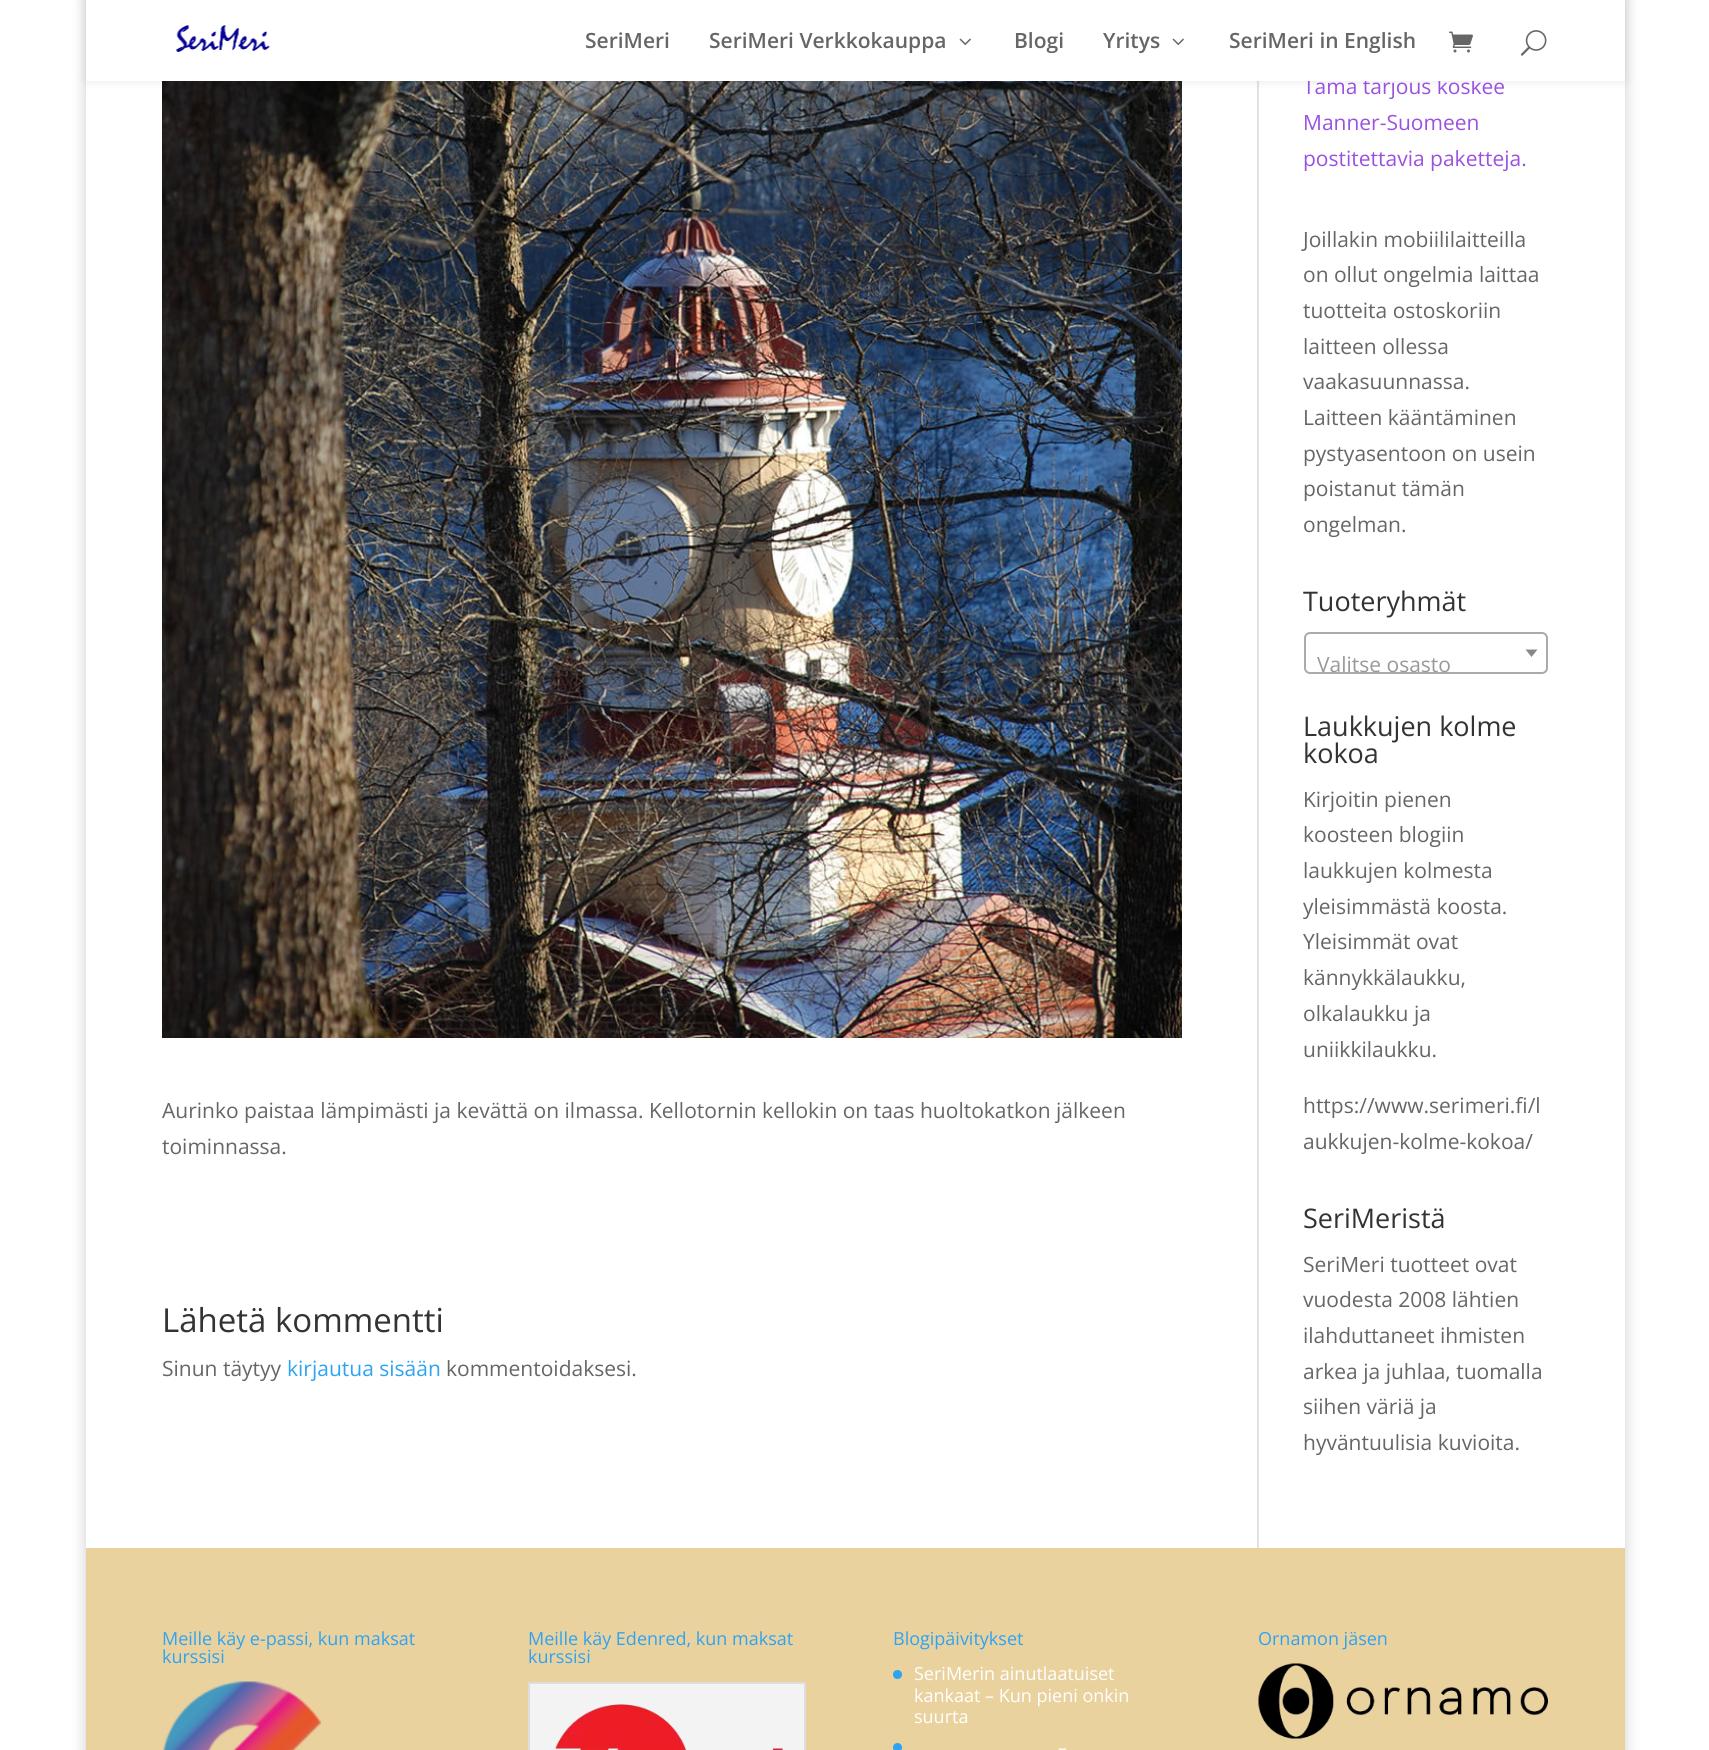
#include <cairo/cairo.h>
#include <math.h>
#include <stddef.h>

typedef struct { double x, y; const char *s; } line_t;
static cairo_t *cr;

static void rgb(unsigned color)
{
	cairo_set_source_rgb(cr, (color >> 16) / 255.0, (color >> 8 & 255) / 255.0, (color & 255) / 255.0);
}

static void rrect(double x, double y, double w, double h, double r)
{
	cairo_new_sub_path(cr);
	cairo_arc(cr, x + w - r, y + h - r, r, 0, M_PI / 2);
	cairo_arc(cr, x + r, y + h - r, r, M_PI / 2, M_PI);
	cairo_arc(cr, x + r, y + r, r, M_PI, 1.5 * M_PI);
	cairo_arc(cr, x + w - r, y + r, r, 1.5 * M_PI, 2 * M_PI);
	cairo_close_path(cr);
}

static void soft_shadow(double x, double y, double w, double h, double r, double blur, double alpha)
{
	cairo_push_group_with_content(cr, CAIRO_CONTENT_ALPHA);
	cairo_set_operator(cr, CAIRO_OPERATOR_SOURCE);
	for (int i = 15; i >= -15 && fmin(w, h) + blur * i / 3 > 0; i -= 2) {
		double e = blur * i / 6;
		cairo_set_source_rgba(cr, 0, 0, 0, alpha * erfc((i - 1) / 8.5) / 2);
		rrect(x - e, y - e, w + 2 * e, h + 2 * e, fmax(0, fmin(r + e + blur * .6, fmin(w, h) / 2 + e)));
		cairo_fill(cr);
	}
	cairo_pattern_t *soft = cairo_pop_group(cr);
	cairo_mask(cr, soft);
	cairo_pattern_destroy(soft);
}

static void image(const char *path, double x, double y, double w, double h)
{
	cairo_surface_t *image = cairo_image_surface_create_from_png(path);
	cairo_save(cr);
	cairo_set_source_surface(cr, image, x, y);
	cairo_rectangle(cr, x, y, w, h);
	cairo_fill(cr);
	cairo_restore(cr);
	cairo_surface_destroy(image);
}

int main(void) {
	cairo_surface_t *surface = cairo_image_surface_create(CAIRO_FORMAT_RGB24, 1709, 1750);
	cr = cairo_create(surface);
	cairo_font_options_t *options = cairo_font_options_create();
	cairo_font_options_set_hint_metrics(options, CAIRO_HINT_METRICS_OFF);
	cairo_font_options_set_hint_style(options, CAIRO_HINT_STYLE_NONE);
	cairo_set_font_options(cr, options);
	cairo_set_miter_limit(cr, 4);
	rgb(0xffffff);
	cairo_paint(cr);
	cairo_save(cr);
	cairo_set_fill_rule(cr, CAIRO_FILL_RULE_EVEN_ODD);
	cairo_new_path(cr);
	cairo_move_to(cr, 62, 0);
	cairo_line_to(cr, 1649, 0);
	cairo_line_to(cr, 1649, 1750);
	cairo_line_to(cr, 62, 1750);
	cairo_close_path(cr);
	cairo_move_to(cr, 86, -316);
	cairo_line_to(cr, 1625, -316);
	cairo_line_to(cr, 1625, 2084);
	cairo_line_to(cr, 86, 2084);
	cairo_close_path(cr);
	cairo_clip(cr);
	rgb(0x000000);
	soft_shadow(86, -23, 1539, 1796, 0, 7.5, 0.2);
	cairo_restore(cr);
	rgb(0xffffff);
	cairo_rectangle(cr, 1624, 81, 1, 1467);
	cairo_fill(cr);
	image("img/5.png", 162, 81, 1020, 957);
	rgb(0xe2e2e2);
	cairo_rectangle(cr, 1257, 81, 2, 1467);
	cairo_fill(cr);
	rgb(0x000000);
	soft_shadow(86, 0, 1539, 81, 0, 5, 0.1);
	rrect(1305, 633, 242, 40, 5);
	rgb(0xaaaaaa);
	cairo_stroke(cr);
	rgb(0x888888);
	cairo_new_path(cr);
	cairo_move_to(cr, 1525.5, 649.5);
	cairo_line_to(cr, 1537.5, 649.5);
	cairo_line_to(cr, 1531.5, 657);
	cairo_close_path(cr);
	cairo_fill(cr);
	cairo_set_source_rgba(cr, 0.878, 0.745, 0.455, 0.69);
	cairo_rectangle(cr, 86, 1548, 1539, 202);
	cairo_fill(cr);
	image("img/6.png", 163, 1681, 158, 69);
	rgb(0xf3f3f3);
	cairo_rectangle(cr, 529, 1683, 276, 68);
	cairo_fill_preserve(cr);
	rgb(0xdddddd);
	cairo_stroke(cr);
	image("img/7.png", 555, 1704, 228, 46);
	rgb(0x2ea3f2);
	cairo_arc(cr, 897.5, 1674.5, 4.5, 0, 2 * M_PI);
	cairo_fill(cr);
	cairo_arc(cr, 897.5, 1747.5, 4.5, 0, 2 * M_PI);
	cairo_fill(cr);
	image("img/8.png", 1258, 1663, 290, 76);
	cairo_select_font_face(cr, "Open Sans", CAIRO_FONT_SLANT_NORMAL, CAIRO_FONT_WEIGHT_NORMAL);
	cairo_set_font_size(cr, 21);
	rgb(0x666666);
	cairo_move_to(cr, 162, 1118);
	cairo_show_text(cr, "Aurinko paistaa lämpimästi ja kevättä on ilmassa. Kellotornin kellokin on taas huoltokatkon jälkeen");
	cairo_move_to(cr, 162, 1154);
	cairo_show_text(cr, "toiminnassa.");
	cairo_set_font_size(cr, 33);
	rgb(0x333333);
	cairo_move_to(cr, 162, 1332);
	cairo_show_text(cr, "Lähetä kommentti");
	cairo_set_font_size(cr, 21);
	rgb(0x666666);
	cairo_move_to(cr, 162, 1376);
	cairo_show_text(cr, "Sinun täytyy");
	rgb(0x2ea3f2);
	cairo_move_to(cr, 287, 1376);
	cairo_show_text(cr, "kirjautua sisään");
	rgb(0x666666);
	cairo_move_to(cr, 446, 1376);
	cairo_show_text(cr, "kommentoidaksesi.");
	rgb(0x9b51e0);
	cairo_move_to(cr, 1303, 94);
	cairo_show_text(cr, "Tämä tarjous koskee");
	rgb(0xffffff);
	cairo_rectangle(cr, 86, 0, 1539, 81);
	cairo_fill(cr);
	image("img/4.png", 1520, 30, 27, 26);
	image("img/3.png", 1449, 31, 24, 22);
	cairo_select_font_face(cr, "Open Sans SemiBold", CAIRO_FONT_SLANT_NORMAL, CAIRO_FONT_WEIGHT_NORMAL);
	rgb(0x666666);
	cairo_move_to(cr, 1229, 48);
	cairo_show_text(cr, "SeriMeri in English");
	image("img/2.png", 1172, 38, 12, 7);
	cairo_move_to(cr, 1103, 48);
	cairo_show_text(cr, "Yritys");
	cairo_move_to(cr, 1014, 48);
	cairo_show_text(cr, "Blogi");
	image("img/2.png", 959, 38, 12, 7);
	cairo_move_to(cr, 709, 48);
	cairo_show_text(cr, "SeriMeri Verkkokauppa");
	cairo_move_to(cr, 585, 48);
	cairo_show_text(cr, "SeriMeri");
	image("img/1.png", 175, 25, 95, 27);
	cairo_select_font_face(cr, "Open Sans", CAIRO_FONT_SLANT_NORMAL, CAIRO_FONT_WEIGHT_NORMAL);
	rgb(0x9b51e0);
	cairo_move_to(cr, 1303, 130);
	cairo_show_text(cr, "Manner-Suomeen");
	cairo_move_to(cr, 1303, 166);
	cairo_show_text(cr, "postitettavia paketteja.");
	rgb(0x666666);
	{
		static const line_t items[] = {
			{1303, 247, "Joillakin mobiililaitteilla"},
			{1303, 282, "on ollut ongelmia laittaa"},
			{1303, 318, "tuotteita ostoskoriin"},
			{1303, 354, "laitteen ollessa"},
			{1303, 389, "vaakasuunnassa."},
			{1303, 425, "Laitteen kääntäminen"},
			{1303, 461, "pystyasentoon on usein"},
			{1303, 496, "poistanut tämän"},
			{1303, 532, "ongelman."},
		};
		for (size_t i = 0; i < sizeof items / sizeof *items; i++) {
			cairo_move_to(cr, items[i].x, items[i].y);
			cairo_show_text(cr, items[i].s);
		}
	}
	cairo_set_font_size(cr, 27);
	rgb(0x333333);
	cairo_move_to(cr, 1303, 611);
	cairo_show_text(cr, "Tuoteryhmät");
	cairo_set_font_size(cr, 21);
	rgb(0x999999);
	cairo_move_to(cr, 1317, 672);
	cairo_show_text(cr, "Valitse osasto");
	cairo_set_font_size(cr, 27);
	rgb(0x333333);
	cairo_move_to(cr, 1303, 736);
	cairo_show_text(cr, "Laukkujen kolme");
	cairo_move_to(cr, 1303, 763);
	cairo_show_text(cr, "kokoa");
	cairo_set_font_size(cr, 21);
	rgb(0x666666);
	{
		static const line_t items[] = {
			{1303, 807, "Kirjoitin pienen"},
			{1303, 842, "koosteen blogiin"},
			{1303, 878, "laukkujen kolmesta"},
			{1303, 914, "yleisimmästä koosta."},
			{1303, 949, "Yleisimmät ovat"},
			{1303, 985, "kännykkälaukku,"},
			{1303, 1021, "olkalaukku ja"},
			{1303, 1057, "uniikkilaukku."},
			{1303, 1113, "https://www.serimeri.fi/l"},
			{1303, 1149, "aukkujen-kolme-kokoa/"},
		};
		for (size_t i = 0; i < sizeof items / sizeof *items; i++) {
			cairo_move_to(cr, items[i].x, items[i].y);
			cairo_show_text(cr, items[i].s);
		}
	}
	cairo_set_font_size(cr, 27);
	rgb(0x333333);
	cairo_move_to(cr, 1303, 1228);
	cairo_show_text(cr, "SeriMeristä");
	cairo_set_font_size(cr, 21);
	rgb(0x666666);
	{
		static const line_t items[] = {
			{1303, 1272, "SeriMeri tuotteet ovat"},
			{1303, 1307, "vuodesta 2008 lähtien"},
			{1303, 1343, "ilahduttaneet ihmisten"},
			{1303, 1379, "arkea ja juhlaa, tuomalla"},
			{1303, 1414, "siihen väriä ja"},
			{1303, 1450, "hyväntuulisia kuvioita."},
		};
		for (size_t i = 0; i < sizeof items / sizeof *items; i++) {
			cairo_move_to(cr, items[i].x, items[i].y);
			cairo_show_text(cr, items[i].s);
		}
	}
	cairo_set_font_size(cr, 18);
	rgb(0x2ea3f2);
	{
		static const line_t items[] = {
			{162, 1645, "Meille käy e-passi, kun maksat"},
			{162, 1663, "kurssisi"},
			{528, 1645, "Meille käy Edenred, kun maksat"},
			{528, 1663, "kurssisi"},
			{893, 1645, "Blogipäivitykset"},
		};
		for (size_t i = 0; i < sizeof items / sizeof *items; i++) {
			cairo_move_to(cr, items[i].x, items[i].y);
			cairo_show_text(cr, items[i].s);
		}
	}
	rgb(0xffffff);
	{
		static const line_t items[] = {
			{914, 1680, "SeriMerin ainutlaatuiset"},
			{914, 1702, "kankaat – Kun pieni onkin"},
			{914, 1723, "suurta"},
			{1058, 1754, "–"},
		};
		for (size_t i = 0; i < sizeof items / sizeof *items; i++) {
			cairo_move_to(cr, items[i].x, items[i].y);
			cairo_show_text(cr, items[i].s);
		}
	}
	rgb(0x2ea3f2);
	cairo_move_to(cr, 1258, 1645);
	cairo_show_text(cr, "Ornamon jäsen");
	cairo_surface_write_to_png(surface, "page.png");
	cairo_font_options_destroy(options);
	cairo_destroy(cr);
	cairo_surface_destroy(surface);
	return 0;
}
